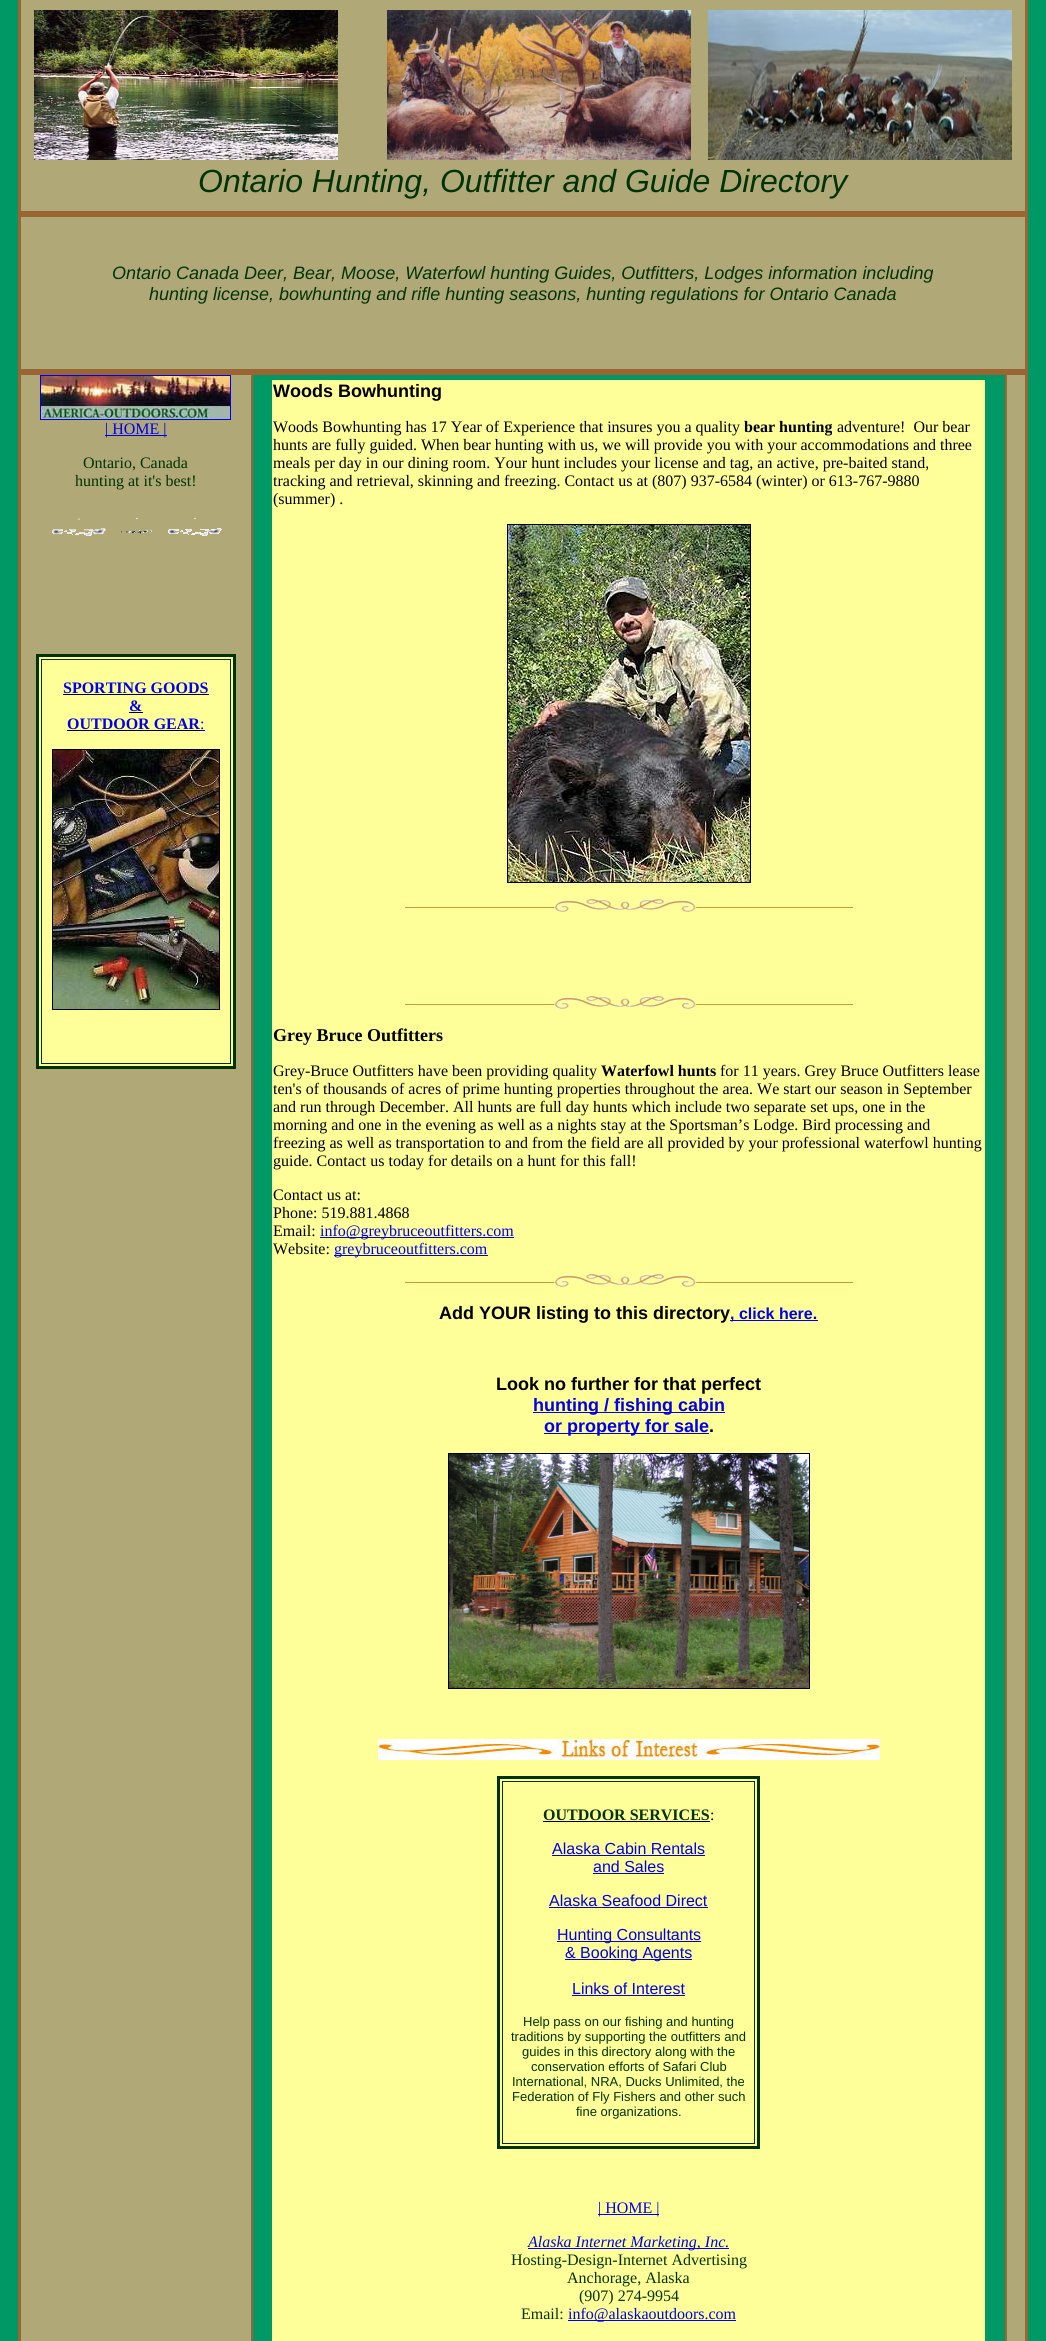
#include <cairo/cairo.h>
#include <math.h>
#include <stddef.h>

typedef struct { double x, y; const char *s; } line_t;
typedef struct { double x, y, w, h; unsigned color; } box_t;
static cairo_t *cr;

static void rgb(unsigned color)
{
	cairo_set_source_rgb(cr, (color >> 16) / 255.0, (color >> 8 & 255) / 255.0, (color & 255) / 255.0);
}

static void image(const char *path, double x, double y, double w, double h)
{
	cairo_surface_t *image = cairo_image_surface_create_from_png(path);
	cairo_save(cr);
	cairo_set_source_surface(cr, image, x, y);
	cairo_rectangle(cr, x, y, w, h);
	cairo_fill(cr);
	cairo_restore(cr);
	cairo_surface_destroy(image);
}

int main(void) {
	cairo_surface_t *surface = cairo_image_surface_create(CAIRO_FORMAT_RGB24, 1046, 2341);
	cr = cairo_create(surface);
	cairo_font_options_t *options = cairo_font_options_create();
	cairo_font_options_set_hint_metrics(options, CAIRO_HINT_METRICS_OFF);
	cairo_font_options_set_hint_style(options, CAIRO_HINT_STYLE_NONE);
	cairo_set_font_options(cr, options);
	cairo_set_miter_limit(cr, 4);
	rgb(0x009966);
	cairo_paint(cr);
	cairo_rectangle(cr, 19, -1, 1008, 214);
	rgb(0x996633);
	cairo_stroke(cr);
	rgb(0xb0a877);
	cairo_rectangle(cr, 20.5, -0.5, 1005, 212);
	cairo_fill_preserve(cr);
	rgb(0x996633);
	cairo_set_line_width(cr, 1);
	cairo_stroke(cr);
	image("img/1.png", 34, 10, 304, 150);
	image("img/2.png", 387, 10, 304, 150);
	image("img/3.png", 708, 10, 304, 150);
	cairo_rectangle(cr, 19, 215, 1008, 156);
	cairo_set_line_width(cr, 2);
	cairo_stroke(cr);
	rgb(0xb0a877);
	cairo_rectangle(cr, 20.5, 216.5, 1005, 153);
	cairo_fill_preserve(cr);
	rgb(0x996633);
	cairo_set_line_width(cr, 1);
	cairo_stroke(cr);
	cairo_rectangle(cr, 19, 373, 1008, 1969);
	cairo_set_line_width(cr, 2);
	cairo_stroke(cr);
	rgb(0xb0a877);
	cairo_rectangle(cr, 20.5, 374.5, 231, 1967);
	cairo_fill_preserve(cr);
	rgb(0x996633);
	cairo_set_line_width(cr, 1);
	cairo_stroke(cr);
	cairo_rectangle(cr, 40.5, 375.5, 190, 44);
	rgb(0x0000ee);
	cairo_stroke(cr);
	image("img/4.png", 41, 376, 189, 43);
	cairo_rectangle(cr, 105, 435, 62, 1);
	cairo_fill(cr);
	image("img/5.png", 52, 518, 54, 18);
	image("img/6.png", 121, 518, 31, 16);
	image("img/7.png", 168, 518, 54, 18);
	rgb(0xffff99);
	cairo_rectangle(cr, 37.5, 655.5, 197, 412);
	cairo_fill_preserve(cr);
	rgb(0x003300);
	cairo_set_line_width(cr, 3);
	cairo_stroke(cr);
	cairo_rectangle(cr, 41.5, 659.5, 189, 404);
	cairo_set_line_width(cr, 1);
	cairo_stroke(cr);
	{
		static const box_t items[] = {
			{63, 694, 146, 1, 0x000000},
			{129, 712, 14, 1, 0x000000},
			{67, 730, 133, 1, 0x000000},
			{200, 730, 5, 1, 0x0000ee},
		};
		for (size_t i = 0; i < sizeof items / sizeof *items; i++) {
			rgb(items[i].color);
			cairo_rectangle(cr, items[i].x, items[i].y, items[i].w, items[i].h);
			cairo_fill(cr);
		}
	}
	cairo_rectangle(cr, 52.5, 749.5, 167, 260);
	rgb(0x000000);
	cairo_stroke(cr);
	image("img/8.png", 53, 750, 166, 259);
	cairo_rectangle(cr, 252.5, 374.5, 753, 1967);
	rgb(0x996633);
	cairo_stroke(cr);
	rgb(0xffff99);
	cairo_rectangle(cr, 272, 380, 713, 1961);
	cairo_fill(cr);
	cairo_rectangle(cr, 507.5, 524.5, 243, 358);
	rgb(0x000000);
	cairo_stroke(cr);
	image("img/9.png", 508, 525, 242, 357);
	image("img/10.png", 405, 899, 448, 13);
	image("img/10.png", 405, 996, 448, 13);
	rgb(0x0000ee);
	cairo_rectangle(cr, 320, 1237, 194, 1);
	cairo_fill(cr);
	cairo_rectangle(cr, 334, 1255, 154, 1);
	cairo_fill(cr);
	image("img/10.png", 405, 1274, 448, 13);
	cairo_rectangle(cr, 533, 1412, 192, 1);
	cairo_fill(cr);
	cairo_rectangle(cr, 544, 1433, 165, 1);
	cairo_fill(cr);
	cairo_rectangle(cr, 448.5, 1453.5, 361, 235);
	rgb(0x000000);
	cairo_stroke(cr);
	image("img/11.png", 449, 1454, 360, 234);
	image("img/12.png", 378, 1739, 502, 21);
	cairo_rectangle(cr, 498.5, 1777.5, 260, 370);
	rgb(0x003300);
	cairo_set_line_width(cr, 3);
	cairo_stroke(cr);
	cairo_rectangle(cr, 502.5, 1781.5, 252, 362);
	cairo_set_line_width(cr, 1);
	cairo_stroke(cr);
	{
		static const box_t items[] = {
			{543, 1821, 167, 1, 0x000000},
			{552, 1855, 153, 1, 0x0000ee},
			{593, 1873, 71, 1, 0x0000ee},
			{549, 1907, 159, 1, 0x0000ee},
			{557, 1941, 144, 1, 0x0000ee},
			{565, 1959, 127, 1, 0x0000ee},
			{572, 1995, 113, 1, 0x0000ee},
			{598, 2214, 61, 1, 0x0000ee},
			{528, 2248, 201, 1, 0x0000ee},
			{568, 2320, 168, 1, 0x0000ee},
		};
		for (size_t i = 0; i < sizeof items / sizeof *items; i++) {
			rgb(items[i].color);
			cairo_rectangle(cr, items[i].x, items[i].y, items[i].w, items[i].h);
			cairo_fill(cr);
		}
	}
	rgb(0xb0a877);
	cairo_rectangle(cr, 1006.5, 374.5, 19, 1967);
	cairo_fill_preserve(cr);
	rgb(0x996633);
	cairo_stroke(cr);
	cairo_select_font_face(cr, "Liberation Sans", CAIRO_FONT_SLANT_ITALIC, CAIRO_FONT_WEIGHT_NORMAL);
	cairo_set_font_size(cr, 32);
	rgb(0x003300);
	cairo_move_to(cr, 198, 192);
	cairo_show_text(cr, "Ontario Hunting, Outfitter and Guide Directory");
	cairo_set_font_size(cr, 18);
	cairo_move_to(cr, 112, 279);
	cairo_show_text(cr, "Ontario Canada Deer, Bear, Moose, Waterfowl hunting Guides, Outfitters, Lodges information including");
	cairo_move_to(cr, 149, 300);
	cairo_show_text(cr, "hunting license, bowhunting and rifle hunting seasons, hunting regulations for Ontario Canada");
	cairo_select_font_face(cr, "Liberation Serif", CAIRO_FONT_SLANT_NORMAL, CAIRO_FONT_WEIGHT_NORMAL);
	cairo_set_font_size(cr, 16);
	rgb(0x0000ee);
	cairo_move_to(cr, 105, 434);
	cairo_show_text(cr, "| HOME |");
	rgb(0x003300);
	cairo_move_to(cr, 83, 468);
	cairo_show_text(cr, "Ontario, Canada");
	cairo_move_to(cr, 75, 486);
	cairo_show_text(cr, "hunting at it's best!");
	cairo_select_font_face(cr, "Liberation Serif", CAIRO_FONT_SLANT_NORMAL, CAIRO_FONT_WEIGHT_BOLD);
	rgb(0x0000ee);
	{
		static const line_t items[] = {
			{63, 693, "SPORTING GOODS"},
			{129, 711, "&"},
			{67, 729, "OUTDOOR GEAR"},
		};
		for (size_t i = 0; i < sizeof items / sizeof *items; i++) {
			cairo_move_to(cr, items[i].x, items[i].y);
			cairo_show_text(cr, items[i].s);
		}
	}
	cairo_select_font_face(cr, "Liberation Serif", CAIRO_FONT_SLANT_NORMAL, CAIRO_FONT_WEIGHT_NORMAL);
	cairo_move_to(cr, 200, 729);
	cairo_show_text(cr, ":");
	cairo_select_font_face(cr, "Liberation Sans", CAIRO_FONT_SLANT_NORMAL, CAIRO_FONT_WEIGHT_BOLD);
	cairo_set_font_size(cr, 18);
	rgb(0x000000);
	cairo_move_to(cr, 273, 397);
	cairo_show_text(cr, "Woods Bowhunting");
	cairo_select_font_face(cr, "Liberation Serif", CAIRO_FONT_SLANT_NORMAL, CAIRO_FONT_WEIGHT_NORMAL);
	cairo_set_font_size(cr, 16);
	cairo_move_to(cr, 273, 432);
	cairo_show_text(cr, "Woods Bowhunting has 17 Year of Experience that insures you a quality");
	cairo_select_font_face(cr, "Liberation Serif", CAIRO_FONT_SLANT_NORMAL, CAIRO_FONT_WEIGHT_BOLD);
	cairo_move_to(cr, 744, 432);
	cairo_show_text(cr, "bear hunting");
	cairo_select_font_face(cr, "Liberation Serif", CAIRO_FONT_SLANT_NORMAL, CAIRO_FONT_WEIGHT_NORMAL);
	{
		static const line_t items[] = {
			{837, 432, "adventure!  Our bear"},
			{273, 450, "hunts are fully guided. When bear hunting with us, we will provide you with your accommodations and three"},
			{273, 468, "meals per day in our dining room. Your hunt includes your license and tag, an active, pre-baited stand,"},
			{273, 486, "tracking and retrieval, skinning and freezing. Contact us at (807) 937-6584 (winter) or 613-767-9880"},
			{273, 504, "(summer) ."},
		};
		for (size_t i = 0; i < sizeof items / sizeof *items; i++) {
			cairo_move_to(cr, items[i].x, items[i].y);
			cairo_show_text(cr, items[i].s);
		}
	}
	cairo_select_font_face(cr, "Liberation Serif", CAIRO_FONT_SLANT_NORMAL, CAIRO_FONT_WEIGHT_BOLD);
	cairo_set_font_size(cr, 18);
	cairo_move_to(cr, 273, 1041);
	cairo_show_text(cr, "Grey Bruce Outfitters");
	cairo_select_font_face(cr, "Liberation Serif", CAIRO_FONT_SLANT_NORMAL, CAIRO_FONT_WEIGHT_NORMAL);
	cairo_set_font_size(cr, 16);
	cairo_move_to(cr, 273, 1076);
	cairo_show_text(cr, "Grey-Bruce Outfitters have been providing quality");
	cairo_select_font_face(cr, "Liberation Serif", CAIRO_FONT_SLANT_NORMAL, CAIRO_FONT_WEIGHT_BOLD);
	cairo_move_to(cr, 601, 1076);
	cairo_show_text(cr, "Waterfowl hunts");
	cairo_select_font_face(cr, "Liberation Serif", CAIRO_FONT_SLANT_NORMAL, CAIRO_FONT_WEIGHT_NORMAL);
	{
		static const line_t items[] = {
			{720, 1076, "for 11 years. Grey Bruce Outfitters lease"},
			{273, 1094, "ten's of thousands of acres of prime hunting properties throughout the area. We start our season in September"},
			{273, 1112, "and run through December. All hunts are full day hunts which include two separate set ups, one in the"},
			{273, 1130, "morning and one in the evening as well as a nights stay at the Sportsman’s Lodge. Bird processing and"},
			{273, 1148, "freezing as well as transportation to and from the field are all provided by your professional waterfowl hunting"},
			{273, 1166, "guide. Contact us today for details on a hunt for this fall!"},
			{273, 1200, "Contact us at:"},
			{273, 1218, "Phone: 519.881.4868"},
			{273, 1236, "Email:"},
		};
		for (size_t i = 0; i < sizeof items / sizeof *items; i++) {
			cairo_move_to(cr, items[i].x, items[i].y);
			cairo_show_text(cr, items[i].s);
		}
	}
	rgb(0x0000ee);
	cairo_move_to(cr, 320, 1236);
	cairo_show_text(cr, "info@greybruceoutfitters.com");
	rgb(0x000000);
	cairo_move_to(cr, 273, 1254);
	cairo_show_text(cr, "Website:");
	rgb(0x0000ee);
	cairo_move_to(cr, 334, 1254);
	cairo_show_text(cr, "greybruceoutfitters.com");
	cairo_select_font_face(cr, "Liberation Sans", CAIRO_FONT_SLANT_NORMAL, CAIRO_FONT_WEIGHT_BOLD);
	cairo_set_font_size(cr, 18);
	rgb(0x000000);
	cairo_move_to(cr, 439, 1319);
	cairo_show_text(cr, "Add YOUR listing to this directory");
	rgb(0x0000ee);
	cairo_rectangle(cr, 730, 1320, 88, 1);
	cairo_fill(cr);
	cairo_set_font_size(cr, 16);
	cairo_move_to(cr, 730, 1319);
	cairo_show_text(cr, ", click here.");
	cairo_set_font_size(cr, 18);
	rgb(0x000000);
	cairo_move_to(cr, 496, 1390);
	cairo_show_text(cr, "Look no further for that perfect");
	rgb(0x0000ee);
	cairo_move_to(cr, 533, 1411);
	cairo_show_text(cr, "hunting / fishing cabin");
	cairo_move_to(cr, 544, 1432);
	cairo_show_text(cr, "or property for sale");
	rgb(0x000000);
	cairo_move_to(cr, 709, 1432);
	cairo_show_text(cr, ".");
	cairo_select_font_face(cr, "Liberation Serif", CAIRO_FONT_SLANT_NORMAL, CAIRO_FONT_WEIGHT_BOLD);
	cairo_set_font_size(cr, 16);
	rgb(0x003300);
	cairo_move_to(cr, 543, 1820);
	cairo_show_text(cr, "OUTDOOR SERVICES");
	cairo_select_font_face(cr, "Liberation Serif", CAIRO_FONT_SLANT_NORMAL, CAIRO_FONT_WEIGHT_NORMAL);
	rgb(0x000000);
	cairo_move_to(cr, 710, 1820);
	cairo_show_text(cr, ":");
	cairo_select_font_face(cr, "Liberation Sans", CAIRO_FONT_SLANT_NORMAL, CAIRO_FONT_WEIGHT_NORMAL);
	rgb(0x0000ee);
	{
		static const line_t items[] = {
			{552, 1854, "Alaska Cabin Rentals"},
			{593, 1872, "and Sales"},
			{549, 1906, "Alaska Seafood Direct"},
			{557, 1940, "Hunting Consultants"},
			{565, 1958, "& Booking Agents"},
			{572, 1994, "Links of Interest"},
		};
		for (size_t i = 0; i < sizeof items / sizeof *items; i++) {
			cairo_move_to(cr, items[i].x, items[i].y);
			cairo_show_text(cr, items[i].s);
		}
	}
	cairo_set_font_size(cr, 13);
	rgb(0x003300);
	{
		static const line_t items[] = {
			{523, 2026, "Help pass on our fishing and hunting"},
			{511, 2041, "traditions by supporting the outfitters and"},
			{522, 2056, "guides in this directory along with the"},
			{531, 2071, "conservation efforts of Safari Club"},
			{512, 2086, "International, NRA, Ducks Unlimited, the"},
			{512, 2101, "Federation of Fly Fishers and other such"},
			{576, 2116, "fine organizations."},
		};
		for (size_t i = 0; i < sizeof items / sizeof *items; i++) {
			cairo_move_to(cr, items[i].x, items[i].y);
			cairo_show_text(cr, items[i].s);
		}
	}
	cairo_select_font_face(cr, "Liberation Serif", CAIRO_FONT_SLANT_NORMAL, CAIRO_FONT_WEIGHT_NORMAL);
	cairo_set_font_size(cr, 16);
	rgb(0x0000ee);
	cairo_move_to(cr, 598, 2213);
	cairo_show_text(cr, "| HOME |");
	cairo_select_font_face(cr, "Liberation Serif", CAIRO_FONT_SLANT_ITALIC, CAIRO_FONT_WEIGHT_NORMAL);
	cairo_move_to(cr, 528, 2247);
	cairo_show_text(cr, "Alaska Internet Marketing, Inc.");
	cairo_select_font_face(cr, "Liberation Serif", CAIRO_FONT_SLANT_NORMAL, CAIRO_FONT_WEIGHT_NORMAL);
	rgb(0x003300);
	{
		static const line_t items[] = {
			{511, 2265, "Hosting-Design-Internet Advertising"},
			{567, 2283, "Anchorage, Alaska"},
			{579, 2301, "(907) 274-9954"},
			{521, 2319, "Email:"},
		};
		for (size_t i = 0; i < sizeof items / sizeof *items; i++) {
			cairo_move_to(cr, items[i].x, items[i].y);
			cairo_show_text(cr, items[i].s);
		}
	}
	rgb(0x0000ee);
	cairo_move_to(cr, 568, 2319);
	cairo_show_text(cr, "info@alaskaoutdoors.com");
	cairo_surface_write_to_png(surface, "page.png");
	cairo_font_options_destroy(options);
	cairo_destroy(cr);
	cairo_surface_destroy(surface);
	return 0;
}
